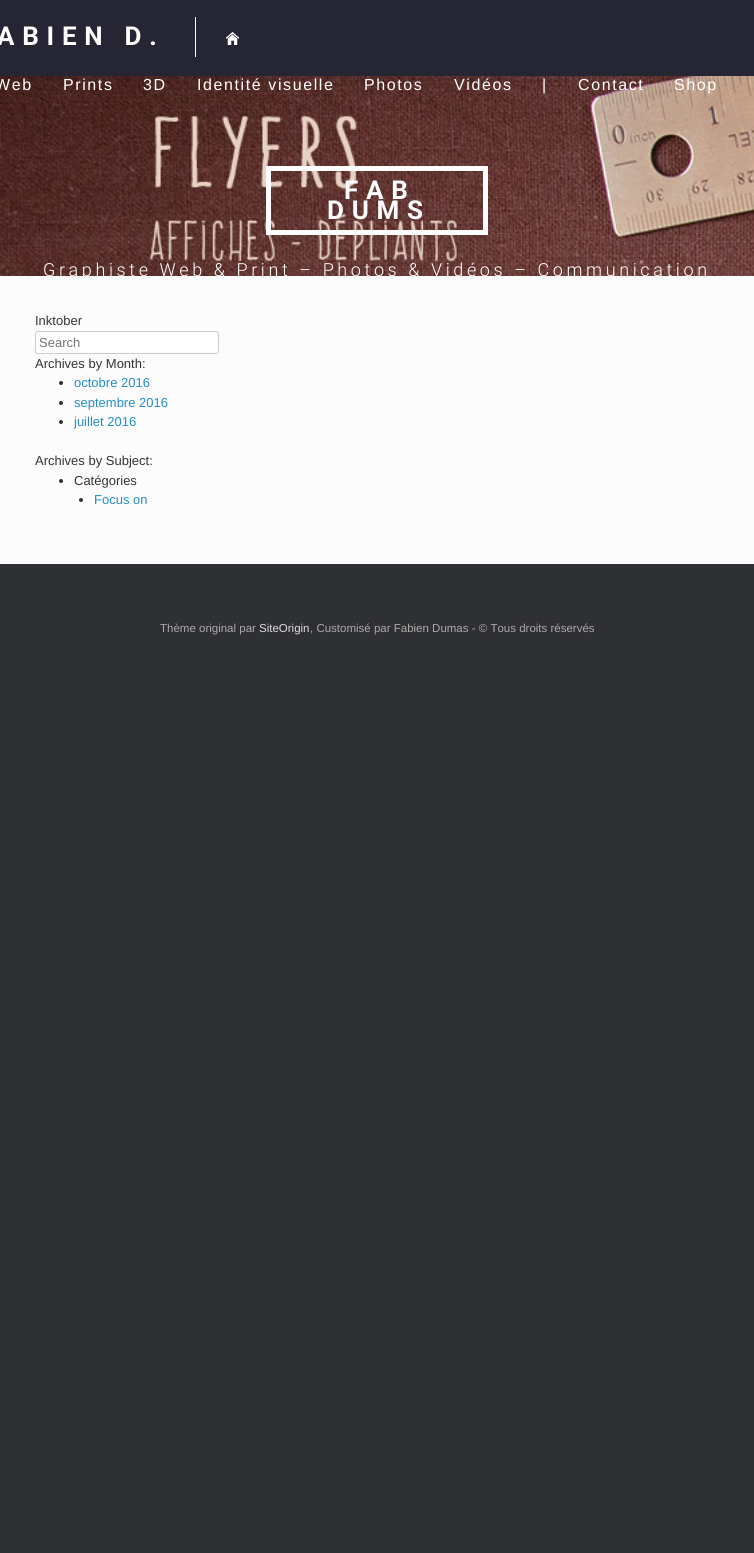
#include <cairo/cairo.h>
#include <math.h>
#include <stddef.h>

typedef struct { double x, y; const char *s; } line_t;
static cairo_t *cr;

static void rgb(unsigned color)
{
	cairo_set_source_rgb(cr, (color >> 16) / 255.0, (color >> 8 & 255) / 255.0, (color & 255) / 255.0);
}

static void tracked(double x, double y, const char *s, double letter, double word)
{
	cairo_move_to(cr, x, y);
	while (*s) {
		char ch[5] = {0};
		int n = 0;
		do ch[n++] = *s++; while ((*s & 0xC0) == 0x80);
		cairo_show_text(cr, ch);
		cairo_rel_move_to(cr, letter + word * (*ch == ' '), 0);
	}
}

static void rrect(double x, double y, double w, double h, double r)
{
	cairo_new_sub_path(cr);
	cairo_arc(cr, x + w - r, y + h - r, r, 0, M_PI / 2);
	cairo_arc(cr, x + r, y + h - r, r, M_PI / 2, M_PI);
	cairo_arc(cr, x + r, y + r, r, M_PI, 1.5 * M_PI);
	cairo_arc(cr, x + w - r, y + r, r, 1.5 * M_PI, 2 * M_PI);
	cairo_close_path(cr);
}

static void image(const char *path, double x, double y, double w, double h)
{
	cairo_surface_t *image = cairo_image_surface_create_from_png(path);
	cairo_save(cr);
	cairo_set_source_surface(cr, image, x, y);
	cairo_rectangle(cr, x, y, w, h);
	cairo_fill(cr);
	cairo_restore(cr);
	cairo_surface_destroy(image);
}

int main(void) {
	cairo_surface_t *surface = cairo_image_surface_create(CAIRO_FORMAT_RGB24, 754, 1553);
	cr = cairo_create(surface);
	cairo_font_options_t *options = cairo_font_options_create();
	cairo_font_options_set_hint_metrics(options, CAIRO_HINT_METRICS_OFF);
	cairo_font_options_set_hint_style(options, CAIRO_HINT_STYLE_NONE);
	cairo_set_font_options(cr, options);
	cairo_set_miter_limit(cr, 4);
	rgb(0x2f3033);
	cairo_paint(cr);
	image("img/1.png", 0, 76, 754, 200);
	rgb(0x262533);
	cairo_rectangle(cr, 0, 0, 754, 76);
	cairo_fill(cr);
	rgb(0xffffff);
	cairo_rectangle(cr, 195, 17, 1, 40);
	cairo_fill(cr);
	image("img/2.png", 226, 32, 13, 13);
	cairo_rectangle(cr, 268.5, 168.5, 217, 64);
	cairo_set_line_width(cr, 5);
	cairo_stroke(cr);
	rgb(0xfcfcfc);
	cairo_rectangle(cr, 0, 276, 754, 288);
	cairo_fill(cr);
	rgb(0xffffff);
	rrect(35.5, 331.5, 183, 22, 2.5);
	cairo_fill_preserve(cr);
	rgb(0xcccccc);
	cairo_set_line_width(cr, 1);
	cairo_stroke(cr);
	rgb(0x333333);
	cairo_arc(cr, 61, 383, 2, 0, 2 * M_PI);
	cairo_fill(cr);
	cairo_arc(cr, 61, 403, 2, 0, 2 * M_PI);
	cairo_fill(cr);
	cairo_arc(cr, 61, 422, 2, 0, 2 * M_PI);
	cairo_fill(cr);
	cairo_arc(cr, 61, 481, 2, 0, 2 * M_PI);
	cairo_fill(cr);
	cairo_arc(cr, 81, 500, 2, 0, 2 * M_PI);
	cairo_fill(cr);
	cairo_select_font_face(cr, "Roboto", CAIRO_FONT_SLANT_NORMAL, CAIRO_FONT_WEIGHT_BOLD);
	cairo_set_font_size(cr, 26);
	rgb(0xffffff);
	tracked(-3, 45, "ABIEN D.", 7.75, 0);
	cairo_select_font_face(cr, "Liberation Sans", CAIRO_FONT_SLANT_NORMAL, CAIRO_FONT_WEIGHT_NORMAL);
	cairo_set_font_size(cr, 16);
	{
		static const line_t items[] = {
			{-5, 90, "Web"},
			{63, 90, "Prints"},
			{143, 90, "3D"},
			{197, 90, "Identité visuelle"},
			{364, 90, "Photos"},
			{454, 90, "Vidéos"},
			{542, 90, "|"},
			{578, 90, "Contact"},
			{674, 90, "Shop"},
		};
		for (size_t i = 0; i < sizeof items / sizeof *items; i++) {
			tracked(items[i].x, items[i].y, items[i].s, 1.6, 0);
		}
	}
	cairo_select_font_face(cr, "Roboto", CAIRO_FONT_SLANT_NORMAL, CAIRO_FONT_WEIGHT_BOLD);
	cairo_set_font_size(cr, 26);
	tracked(344, 199, "FAB", 7.75, 0);
	tracked(327, 219, "DUMS", 7.75, 0);
	cairo_select_font_face(cr, "Roboto Light", CAIRO_FONT_SLANT_NORMAL, CAIRO_FONT_WEIGHT_NORMAL);
	cairo_set_font_size(cr, 18);
	tracked(43, 276, "Graphiste Web & Print – Photos & Vidéos – Communication", 3.6, 0);
	cairo_select_font_face(cr, "Liberation Sans", CAIRO_FONT_SLANT_NORMAL, CAIRO_FONT_WEIGHT_NORMAL);
	cairo_set_font_size(cr, 13);
	rgb(0x333333);
	cairo_move_to(cr, 35, 325);
	cairo_show_text(cr, "Inktober");
	rgb(0x757575);
	cairo_move_to(cr, 39, 347);
	cairo_show_text(cr, "Search");
	rgb(0x333333);
	cairo_move_to(cr, 35, 368);
	cairo_show_text(cr, "Archives by Month:");
	rgb(0x248cc8);
	{
		static const line_t items[] = {
			{74, 387, "octobre 2016"},
			{74, 407, "septembre 2016"},
			{74, 426, "juillet 2016"},
		};
		for (size_t i = 0; i < sizeof items / sizeof *items; i++) {
			cairo_move_to(cr, items[i].x, items[i].y);
			cairo_show_text(cr, items[i].s);
		}
	}
	rgb(0x333333);
	cairo_move_to(cr, 35, 465);
	cairo_show_text(cr, "Archives by Subject:");
	cairo_move_to(cr, 74, 485);
	cairo_show_text(cr, "Catégories");
	rgb(0x248cc8);
	cairo_move_to(cr, 94, 504);
	cairo_show_text(cr, "Focus on");
	cairo_set_font_size(cr, 11.5);
	rgb(0xaaaaaa);
	cairo_move_to(cr, 160, 632);
	cairo_show_text(cr, "Thème original par");
	rgb(0xdddddd);
	cairo_move_to(cr, 259, 632);
	cairo_show_text(cr, "SiteOrigin");
	rgb(0xaaaaaa);
	cairo_move_to(cr, 310, 632);
	cairo_show_text(cr, ", Customisé par Fabien Dumas - © Tous droits réservés");
	cairo_surface_write_to_png(surface, "page.png");
	cairo_font_options_destroy(options);
	cairo_destroy(cr);
	cairo_surface_destroy(surface);
	return 0;
}
